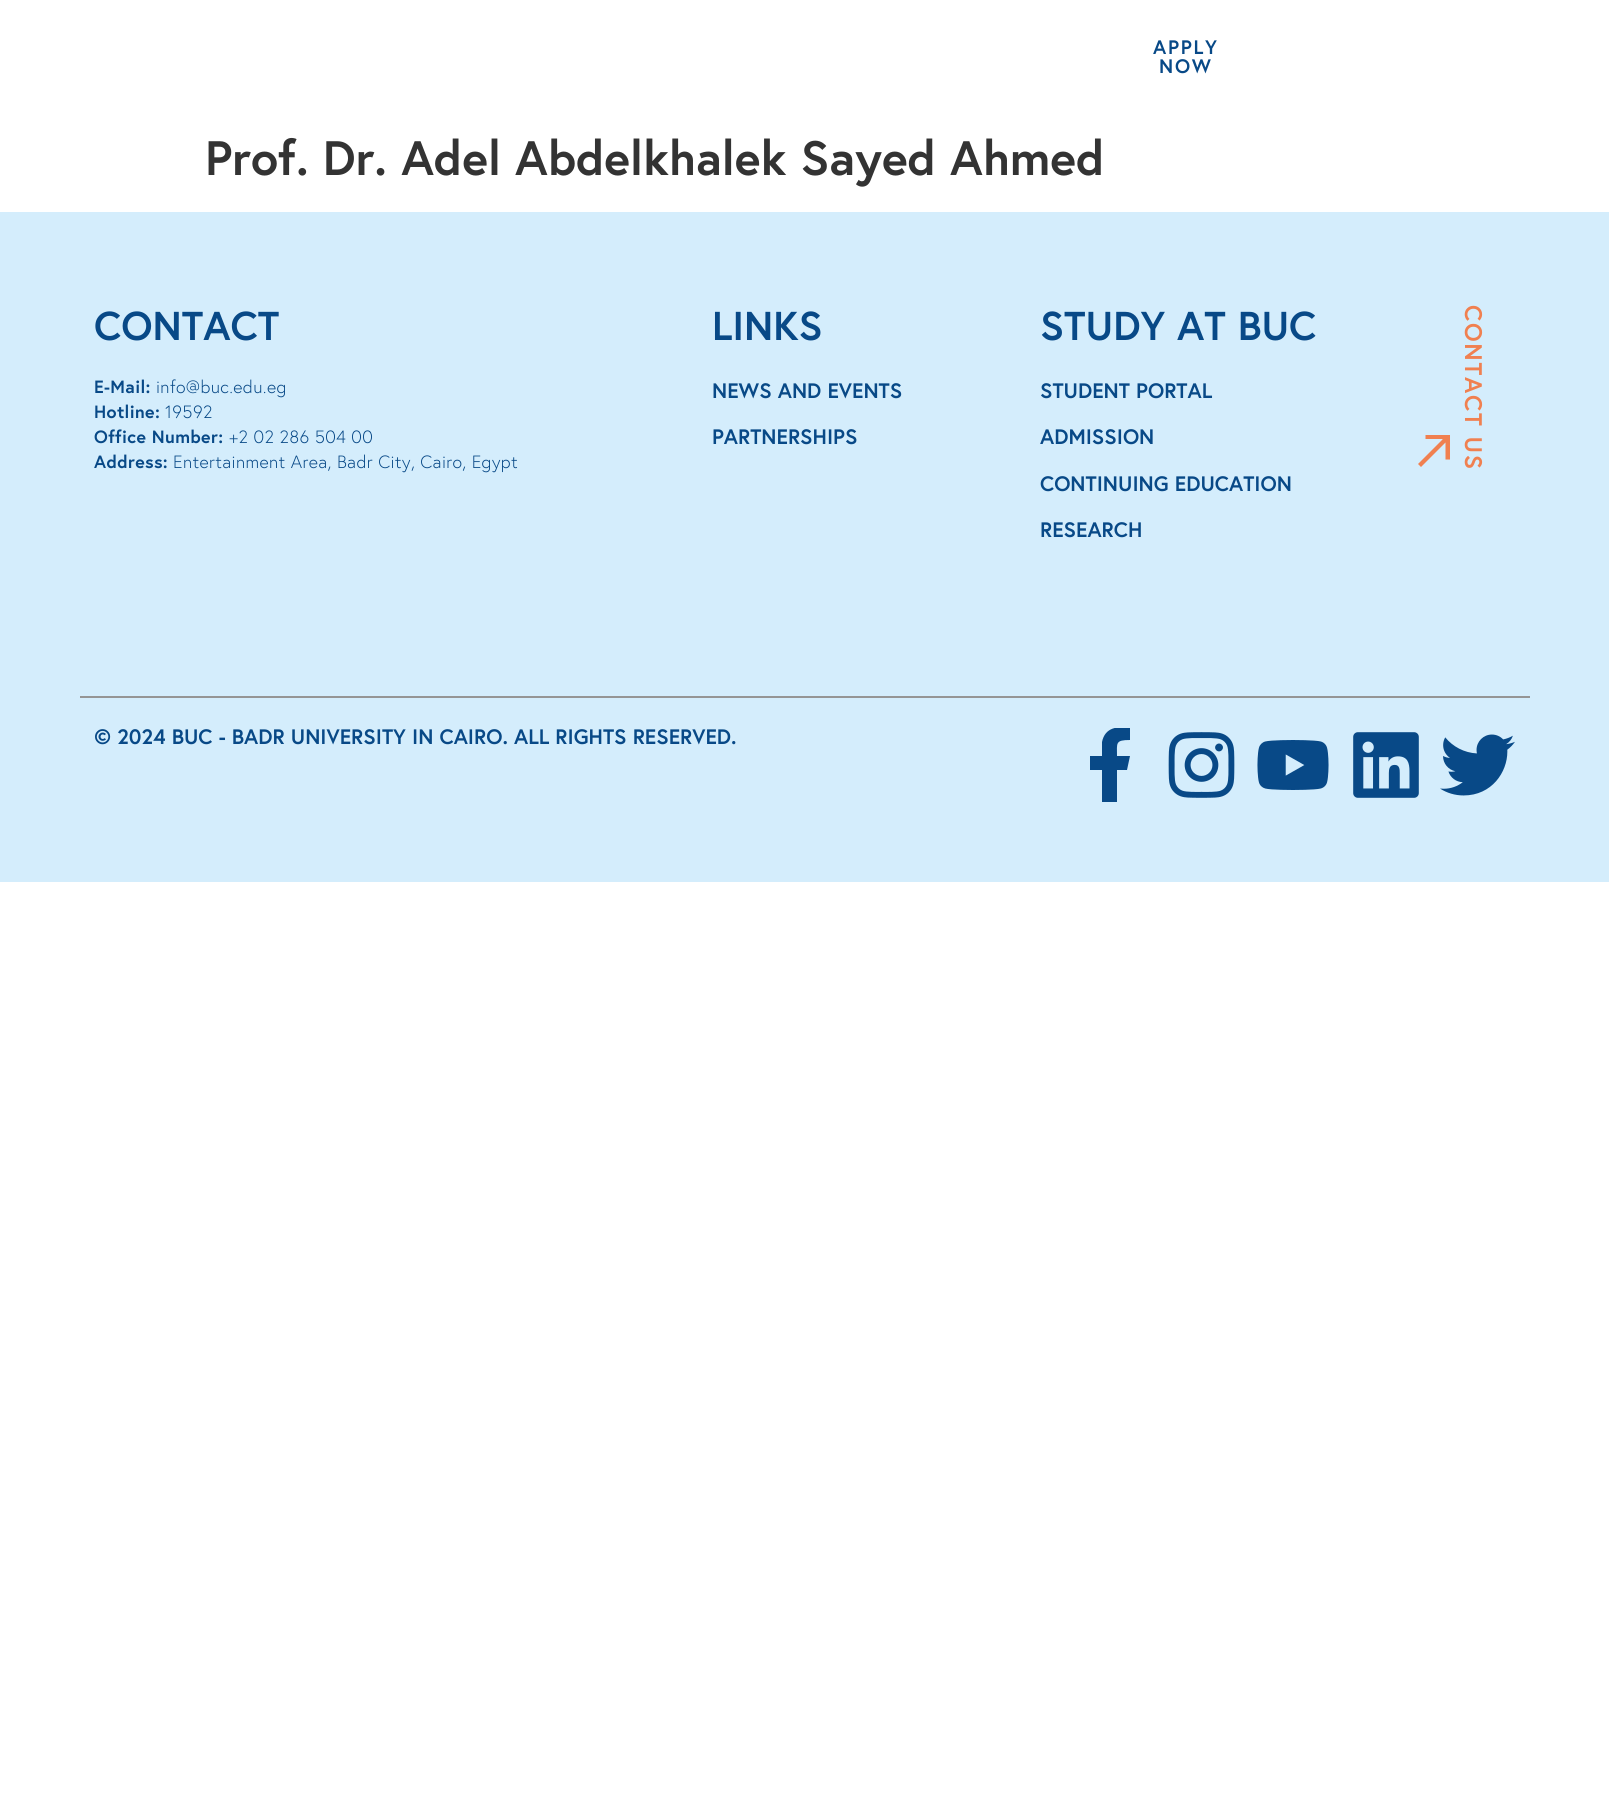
#include <cairo/cairo.h>
#include <math.h>
#include <stddef.h>

typedef struct { double x, y; const char *s; } line_t;
static cairo_t *cr;

static void rgb(unsigned color)
{
	cairo_set_source_rgb(cr, (color >> 16) / 255.0, (color >> 8 & 255) / 255.0, (color & 255) / 255.0);
}

static void tracked(double x, double y, const char *s, double letter, double word)
{
	cairo_move_to(cr, x, y);
	while (*s) {
		char ch[5] = {0};
		int n = 0;
		do ch[n++] = *s++; while ((*s & 0xC0) == 0x80);
		cairo_show_text(cr, ch);
		cairo_rel_move_to(cr, letter + word * (*ch == ' '), 0);
	}
}

static void image(const char *path, double x, double y, double w, double h)
{
	cairo_surface_t *image = cairo_image_surface_create_from_png(path);
	cairo_save(cr);
	cairo_set_source_surface(cr, image, x, y);
	cairo_rectangle(cr, x, y, w, h);
	cairo_fill(cr);
	cairo_restore(cr);
	cairo_surface_destroy(image);
}

int main(void) {
	cairo_surface_t *surface = cairo_image_surface_create(CAIRO_FORMAT_RGB24, 1609, 1794);
	cr = cairo_create(surface);
	cairo_font_options_t *options = cairo_font_options_create();
	cairo_font_options_set_hint_metrics(options, CAIRO_HINT_METRICS_OFF);
	cairo_font_options_set_hint_style(options, CAIRO_HINT_STYLE_NONE);
	cairo_set_font_options(cr, options);
	cairo_set_miter_limit(cr, 4);
	rgb(0xffffff);
	cairo_paint(cr);
	rgb(0xd4edfc);
	cairo_rectangle(cr, 0, 212, 1609, 670);
	cairo_fill(cr);
	rgb(0xf08050);
	cairo_new_path(cr);
	cairo_move_to(cr, 1421, 467);
	cairo_line_to(cr, 1418, 464);
	cairo_line_to(cr, 1442.5, 439.5);
	cairo_line_to(cr, 1442.5, 439);
	cairo_line_to(cr, 1425.5, 439);
	cairo_line_to(cr, 1425.5, 435);
	cairo_line_to(cr, 1450, 435);
	cairo_line_to(cr, 1450, 459.5);
	cairo_line_to(cr, 1445.5, 459.5);
	cairo_line_to(cr, 1445.5, 442.5);
	cairo_close_path(cr);
	cairo_fill(cr);
	rgb(0x959595);
	cairo_rectangle(cr, 80, 696, 1450, 2);
	cairo_fill(cr);
	cairo_save(cr);
	cairo_rectangle(cr, 1073, 728, 75, 75);
	cairo_clip(cr);
	rgb(0x084987);
	cairo_new_path(cr);
	cairo_move_to(cr, 1127, 770);
	cairo_line_to(cr, 1130, 756);
	cairo_line_to(cr, 1117, 756);
	cairo_curve_to(cr, 1117, 743, 1115, 740, 1130, 740);
	cairo_line_to(cr, 1130, 728);
	cairo_curve_to(cr, 1118, 726, 1105, 727, 1102, 742);
	cairo_line_to(cr, 1102, 756);
	cairo_line_to(cr, 1090, 756);
	cairo_line_to(cr, 1090, 770);
	cairo_line_to(cr, 1102, 770);
	cairo_line_to(cr, 1102, 802);
	cairo_line_to(cr, 1117, 802);
	cairo_line_to(cr, 1117, 770);
	cairo_close_path(cr);
	cairo_fill(cr);
	cairo_restore(cr);
	image("img/1.png", 1168, 732, 67, 66);
	image("img/2.png", 1257, 740, 72, 50);
	image("img/3.png", 1353, 732, 66, 66);
	image("img/4.png", 1440, 734, 75, 62);
	cairo_select_font_face(cr, "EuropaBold", CAIRO_FONT_SLANT_NORMAL, CAIRO_FONT_WEIGHT_BOLD);
	cairo_set_font_size(cr, 19.5);
	rgb(0x084987);
	tracked(1153, 54, "APPLY", 1.75, 0);
	tracked(1159, 73, "NOW", 1.75, 0);
	cairo_set_font_size(cr, 48.25);
	rgb(0x333333);
	cairo_move_to(cr, 205, 175);
	cairo_show_text(cr, "Prof. Dr. Adel Abdelkhalek Sayed Ahmed");
	cairo_set_font_size(cr, 40.25);
	rgb(0x084987);
	cairo_move_to(cr, 94, 340);
	cairo_show_text(cr, "CONTACT");
	cairo_set_font_size(cr, 17.75);
	tracked(94, 393, "E-Mail:", 0.35, 0);
	cairo_select_font_face(cr, "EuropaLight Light", CAIRO_FONT_SLANT_NORMAL, CAIRO_FONT_WEIGHT_NORMAL);
	tracked(156, 393, "info@buc.edu.eg", 0.35, 0);
	cairo_select_font_face(cr, "EuropaBold", CAIRO_FONT_SLANT_NORMAL, CAIRO_FONT_WEIGHT_BOLD);
	tracked(94, 418, "Hotline:", 0.35, 0);
	cairo_select_font_face(cr, "EuropaLight Light", CAIRO_FONT_SLANT_NORMAL, CAIRO_FONT_WEIGHT_NORMAL);
	tracked(165, 418, "19592", 0.35, 0);
	cairo_select_font_face(cr, "EuropaBold", CAIRO_FONT_SLANT_NORMAL, CAIRO_FONT_WEIGHT_BOLD);
	tracked(94, 443, "Office Number:", 0.35, 0);
	cairo_select_font_face(cr, "EuropaLight Light", CAIRO_FONT_SLANT_NORMAL, CAIRO_FONT_WEIGHT_NORMAL);
	tracked(229, 443, "+2 02 286 504 00", 0.35, 0);
	cairo_select_font_face(cr, "EuropaBold", CAIRO_FONT_SLANT_NORMAL, CAIRO_FONT_WEIGHT_BOLD);
	tracked(94, 468, "Address:", 0.35, 0);
	cairo_select_font_face(cr, "EuropaLight Light", CAIRO_FONT_SLANT_NORMAL, CAIRO_FONT_WEIGHT_NORMAL);
	tracked(173, 468, "Entertainment Area, Badr City, Cairo, Egypt", 0.35, 0);
	cairo_select_font_face(cr, "EuropaBold", CAIRO_FONT_SLANT_NORMAL, CAIRO_FONT_WEIGHT_BOLD);
	cairo_set_font_size(cr, 40.25);
	cairo_move_to(cr, 712, 340);
	cairo_show_text(cr, "LINKS");
	cairo_set_font_size(cr, 20.9);
	cairo_move_to(cr, 712, 398);
	cairo_show_text(cr, "NEWS AND EVENTS");
	cairo_move_to(cr, 712, 444);
	cairo_show_text(cr, "PARTNERSHIPS");
	cairo_set_font_size(cr, 40.25);
	cairo_move_to(cr, 1040, 340);
	cairo_show_text(cr, "STUDY AT BUC");
	cairo_set_font_size(cr, 20.9);
	{
		static const line_t items[] = {
			{1040, 398, "STUDENT PORTAL"},
			{1040, 444, "ADMISSION"},
			{1040, 491, "CONTINUING EDUCATION"},
			{1040, 537, "RESEARCH"},
		};
		for (size_t i = 0; i < sizeof items / sizeof *items; i++) {
			cairo_move_to(cr, items[i].x, items[i].y);
			cairo_show_text(cr, items[i].s);
		}
	}
	cairo_set_font_size(cr, 24);
	rgb(0xf08050);
	cairo_save(cr);
	cairo_translate(cr, 1465, 305);
	cairo_rotate(cr, 90 * M_PI / 180);
	tracked(0, 0, "CONTACT US", 1.75, 0);
	cairo_restore(cr);
	cairo_set_font_size(cr, 20.9);
	rgb(0x084987);
	cairo_move_to(cr, 94, 744);
	cairo_show_text(cr, "© 2024 BUC - BADR UNIVERSITY IN CAIRO. ALL RIGHTS RESERVED.");
	cairo_surface_write_to_png(surface, "page.png");
	cairo_font_options_destroy(options);
	cairo_destroy(cr);
	cairo_surface_destroy(surface);
	return 0;
}
